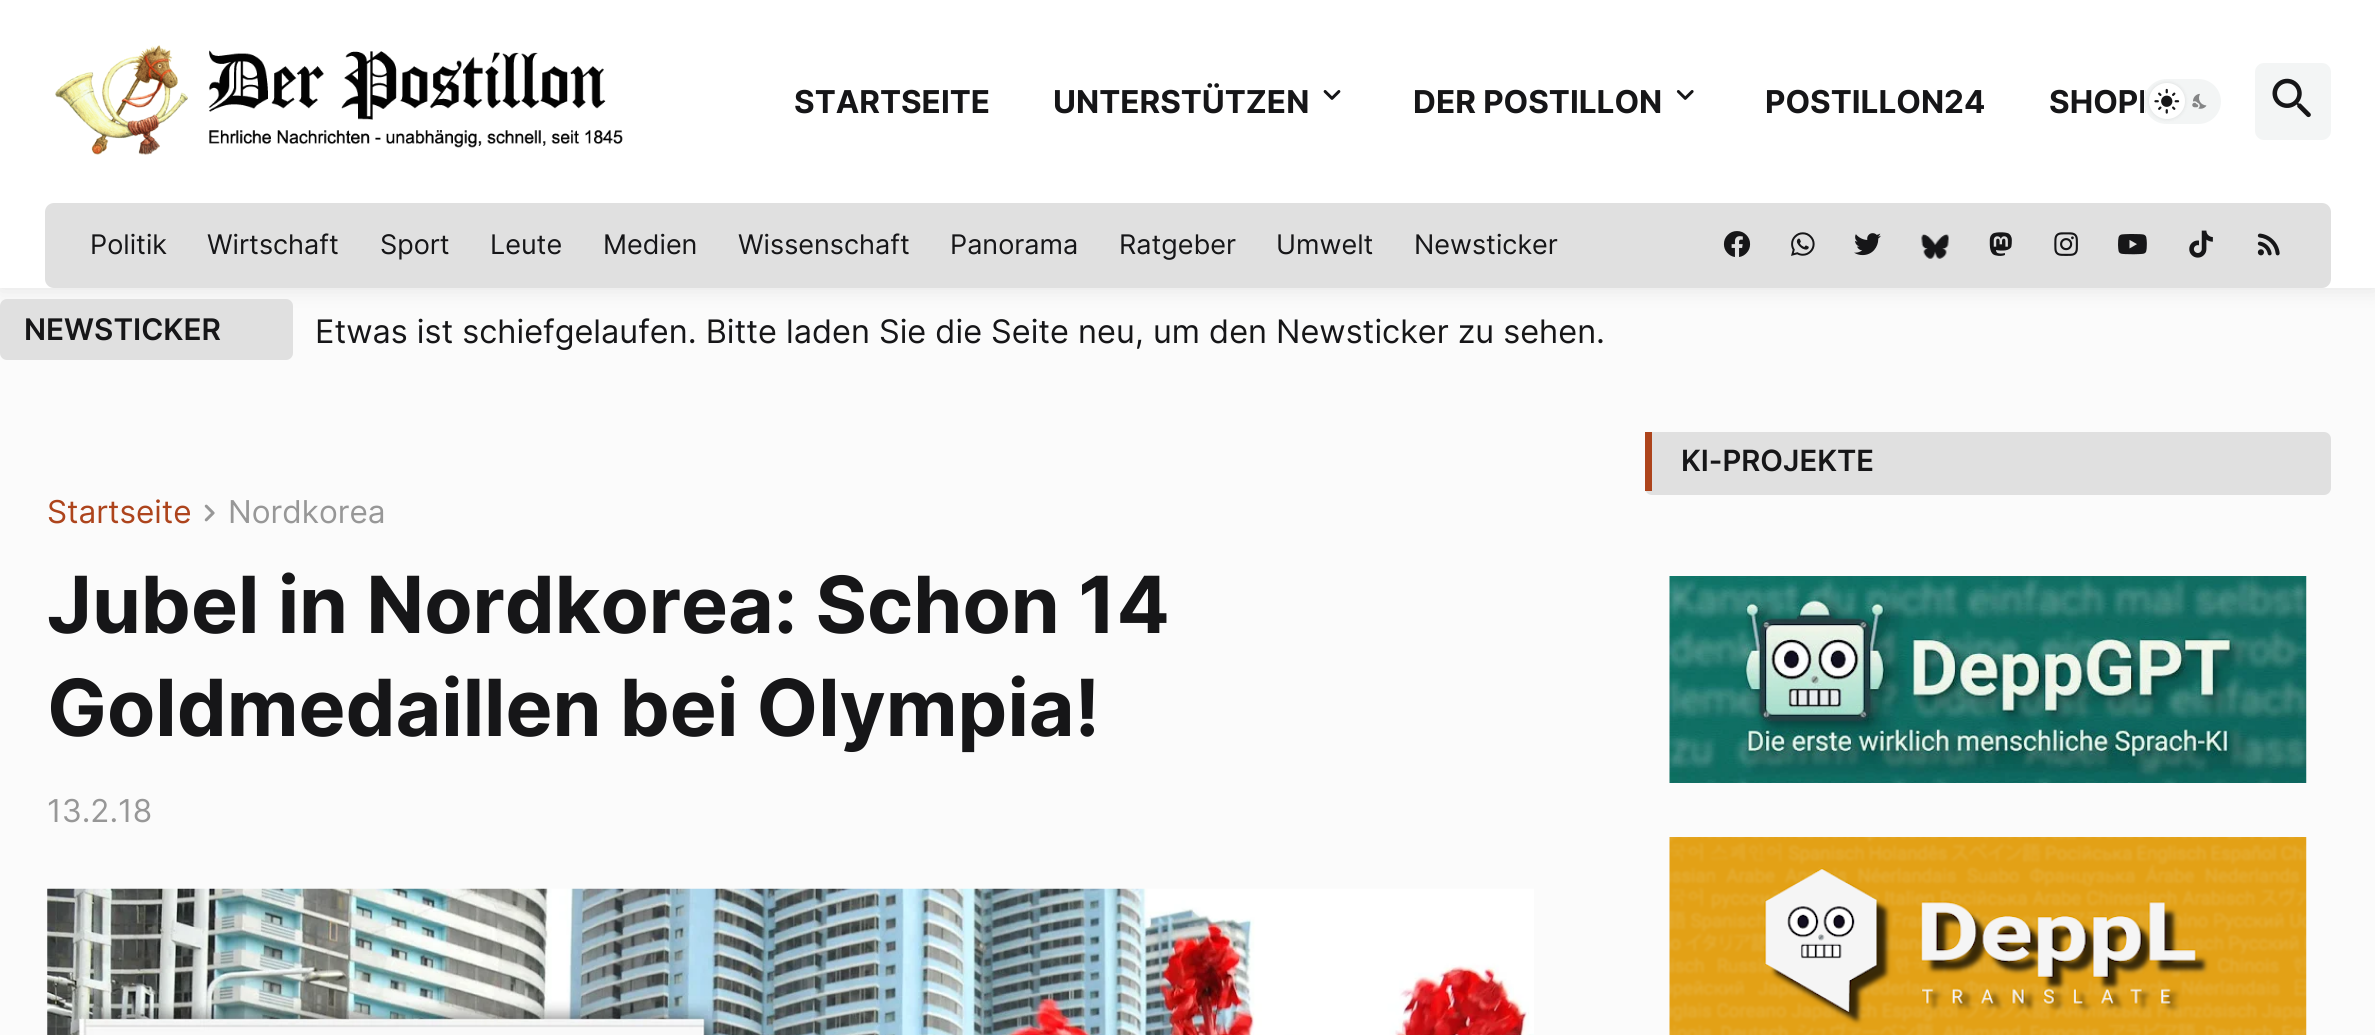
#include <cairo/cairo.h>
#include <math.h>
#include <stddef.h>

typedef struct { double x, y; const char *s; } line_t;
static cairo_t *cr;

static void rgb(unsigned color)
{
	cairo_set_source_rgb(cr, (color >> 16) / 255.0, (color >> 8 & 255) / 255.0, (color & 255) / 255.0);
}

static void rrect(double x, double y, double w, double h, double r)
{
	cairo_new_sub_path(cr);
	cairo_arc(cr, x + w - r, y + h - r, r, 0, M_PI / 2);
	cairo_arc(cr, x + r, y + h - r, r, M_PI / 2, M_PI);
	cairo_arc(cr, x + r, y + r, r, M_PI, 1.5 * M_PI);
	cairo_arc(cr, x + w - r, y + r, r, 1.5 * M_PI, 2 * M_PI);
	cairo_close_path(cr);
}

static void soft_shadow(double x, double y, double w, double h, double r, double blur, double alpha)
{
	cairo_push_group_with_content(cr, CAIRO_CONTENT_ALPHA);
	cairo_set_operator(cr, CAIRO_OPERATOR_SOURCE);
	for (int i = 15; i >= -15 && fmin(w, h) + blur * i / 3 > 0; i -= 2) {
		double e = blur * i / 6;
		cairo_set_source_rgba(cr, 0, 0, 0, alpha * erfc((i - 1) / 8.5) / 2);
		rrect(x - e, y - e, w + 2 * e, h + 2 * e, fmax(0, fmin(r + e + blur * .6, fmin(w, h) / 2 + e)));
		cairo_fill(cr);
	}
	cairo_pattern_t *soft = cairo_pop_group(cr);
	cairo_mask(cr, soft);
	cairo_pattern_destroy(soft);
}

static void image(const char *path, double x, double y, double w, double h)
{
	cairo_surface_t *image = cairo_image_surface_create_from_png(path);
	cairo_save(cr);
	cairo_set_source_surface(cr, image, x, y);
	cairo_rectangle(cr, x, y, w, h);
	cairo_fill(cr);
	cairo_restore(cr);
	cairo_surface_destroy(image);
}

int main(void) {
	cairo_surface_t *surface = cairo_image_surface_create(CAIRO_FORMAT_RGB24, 2375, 1035);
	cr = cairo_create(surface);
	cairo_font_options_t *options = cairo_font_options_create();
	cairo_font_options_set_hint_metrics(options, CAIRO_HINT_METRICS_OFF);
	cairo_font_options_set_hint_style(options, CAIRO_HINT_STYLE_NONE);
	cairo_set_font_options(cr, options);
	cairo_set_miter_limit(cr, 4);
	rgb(0xfbfbfb);
	cairo_paint(cr);
	rgb(0x000000);
	soft_shadow(0, 0, 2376, 288, 0, 11, 0.1);
	rgb(0xffffff);
	cairo_rectangle(cr, 0, 0, 2375, 288);
	cairo_fill(cr);
	image("img/1.png", 55, 45, 568, 110);
	image("img/2.png", 1323, 90, 18, 10);
	image("img/3.png", 1676, 90, 18, 10);
	rgb(0xf3f5f5);
	rrect(2255, 63, 76, 77, 9);
	cairo_fill(cr);
	image("img/6.png", 2272, 78, 39, 40);
	rgb(0xe0e0e0);
	rrect(45, 203, 2286, 85, 9);
	cairo_fill(cr);
	image("img/7.png", 1723, 231, 28, 26);
	image("img/8.png", 1791, 232, 24, 24);
	image("img/9.png", 1854, 233, 27, 23);
	image("img/10.png", 1921, 234, 28, 25);
	image("img/11.png", 1989, 232, 23, 24);
	image("img/12.png", 2054, 232, 24, 24);
	image("img/13.png", 2118, 234, 29, 21);
	image("img/14.png", 2189, 230, 24, 28);
	image("img/15.png", 2257, 233, 23, 23);
	rrect(0, 299, 293, 61, 7);
	cairo_fill(cr);
	rrect(1645, 432, 686, 63, 7);
	cairo_fill(cr);
	rgb(0xad441c);
	cairo_rectangle(cr, 1645, 432, 7, 59);
	cairo_fill(cr);
	image("img/16.png", 1669, 576, 638, 207);
	image("img/17.png", 1669, 837, 638, 198);
	image("img/18.png", 204, 504, 11, 18);
	image("img/19.png", 47, 888, 1487, 147);
	cairo_select_font_face(cr, "Inter", CAIRO_FONT_SLANT_NORMAL, CAIRO_FONT_WEIGHT_BOLD);
	cairo_set_font_size(cr, 31.5);
	rgb(0x161618);
	{
		static const line_t items[] = {
			{794, 113, "STARTSEITE"},
			{1053, 113, "UNTERSTÜTZEN"},
			{1413, 113, "DER POSTILLON"},
			{1765, 113, "POSTILLON24"},
			{2049, 113, "SHOPI"},
		};
		for (size_t i = 0; i < sizeof items / sizeof *items; i++) {
			cairo_move_to(cr, items[i].x, items[i].y);
			cairo_show_text(cr, items[i].s);
		}
	}
	rgb(0xffffff);
	cairo_rectangle(cr, 2144, 90, 1, 23);
	cairo_fill(cr);
	rgb(0xf3f5f5);
	rrect(2144, 79, 77, 45, 22.5);
	cairo_fill(cr);
	rgb(0x000000);
	soft_shadow(2149, 83, 36, 36, 18, 2, 0.1);
	rgb(0xffffff);
	cairo_arc(cr, 2167, 101, 18, 0, 2 * M_PI);
	cairo_fill(cr);
	image("img/4.png", 2154, 88, 26, 26);
	image("img/5.png", 2192, 93, 15, 16);
	cairo_select_font_face(cr, "Inter", CAIRO_FONT_SLANT_NORMAL, CAIRO_FONT_WEIGHT_NORMAL);
	cairo_set_font_size(cr, 27);
	rgb(0x161618);
	{
		static const line_t items[] = {
			{90, 254, "Politik"},
			{207, 254, "Wirtschaft"},
			{380, 254, "Sport"},
			{490, 254, "Leute"},
			{603, 254, "Medien"},
			{738, 254, "Wissenschaft"},
			{950, 254, "Panorama"},
			{1119, 254, "Ratgeber"},
			{1276, 254, "Umwelt"},
			{1414, 254, "Newsticker"},
		};
		for (size_t i = 0; i < sizeof items / sizeof *items; i++) {
			cairo_move_to(cr, items[i].x, items[i].y);
			cairo_show_text(cr, items[i].s);
		}
	}
	cairo_select_font_face(cr, "Inter SemiBold", CAIRO_FONT_SLANT_NORMAL, CAIRO_FONT_WEIGHT_NORMAL);
	cairo_set_font_size(cr, 29.75);
	cairo_move_to(cr, 24, 340);
	cairo_show_text(cr, "NEWSTICKER");
	cairo_select_font_face(cr, "Inter", CAIRO_FONT_SLANT_NORMAL, CAIRO_FONT_WEIGHT_NORMAL);
	cairo_set_font_size(cr, 32.4);
	cairo_move_to(cr, 315, 343);
	cairo_show_text(cr, "Etwas ist schiefgelaufen. Bitte laden Sie die Seite neu, um den Newsticker zu sehen.");
	cairo_select_font_face(cr, "Inter SemiBold", CAIRO_FONT_SLANT_NORMAL, CAIRO_FONT_WEIGHT_NORMAL);
	cairo_set_font_size(cr, 29.25);
	cairo_move_to(cr, 1681, 471);
	cairo_show_text(cr, "KI-PROJEKTE");
	cairo_select_font_face(cr, "Inter", CAIRO_FONT_SLANT_NORMAL, CAIRO_FONT_WEIGHT_NORMAL);
	cairo_set_font_size(cr, 31.5);
	rgb(0xad441c);
	cairo_move_to(cr, 47, 523);
	cairo_show_text(cr, "Startseite");
	rgb(0x979797);
	cairo_move_to(cr, 228, 523);
	cairo_show_text(cr, "Nordkorea");
	cairo_select_font_face(cr, "Inter", CAIRO_FONT_SLANT_NORMAL, CAIRO_FONT_WEIGHT_BOLD);
	cairo_set_font_size(cr, 78.75);
	rgb(0x161618);
	cairo_move_to(cr, 47, 633);
	cairo_show_text(cr, "Jubel in Nordkorea: Schon 14");
	cairo_move_to(cr, 47, 736);
	cairo_show_text(cr, "Goldmedaillen bei Olympia!");
	cairo_select_font_face(cr, "Inter", CAIRO_FONT_SLANT_NORMAL, CAIRO_FONT_WEIGHT_NORMAL);
	cairo_set_font_size(cr, 31.5);
	rgb(0x979797);
	cairo_move_to(cr, 47, 822);
	cairo_show_text(cr, "13.2.18");
	cairo_surface_write_to_png(surface, "page.png");
	cairo_font_options_destroy(options);
	cairo_destroy(cr);
	cairo_surface_destroy(surface);
	return 0;
}
